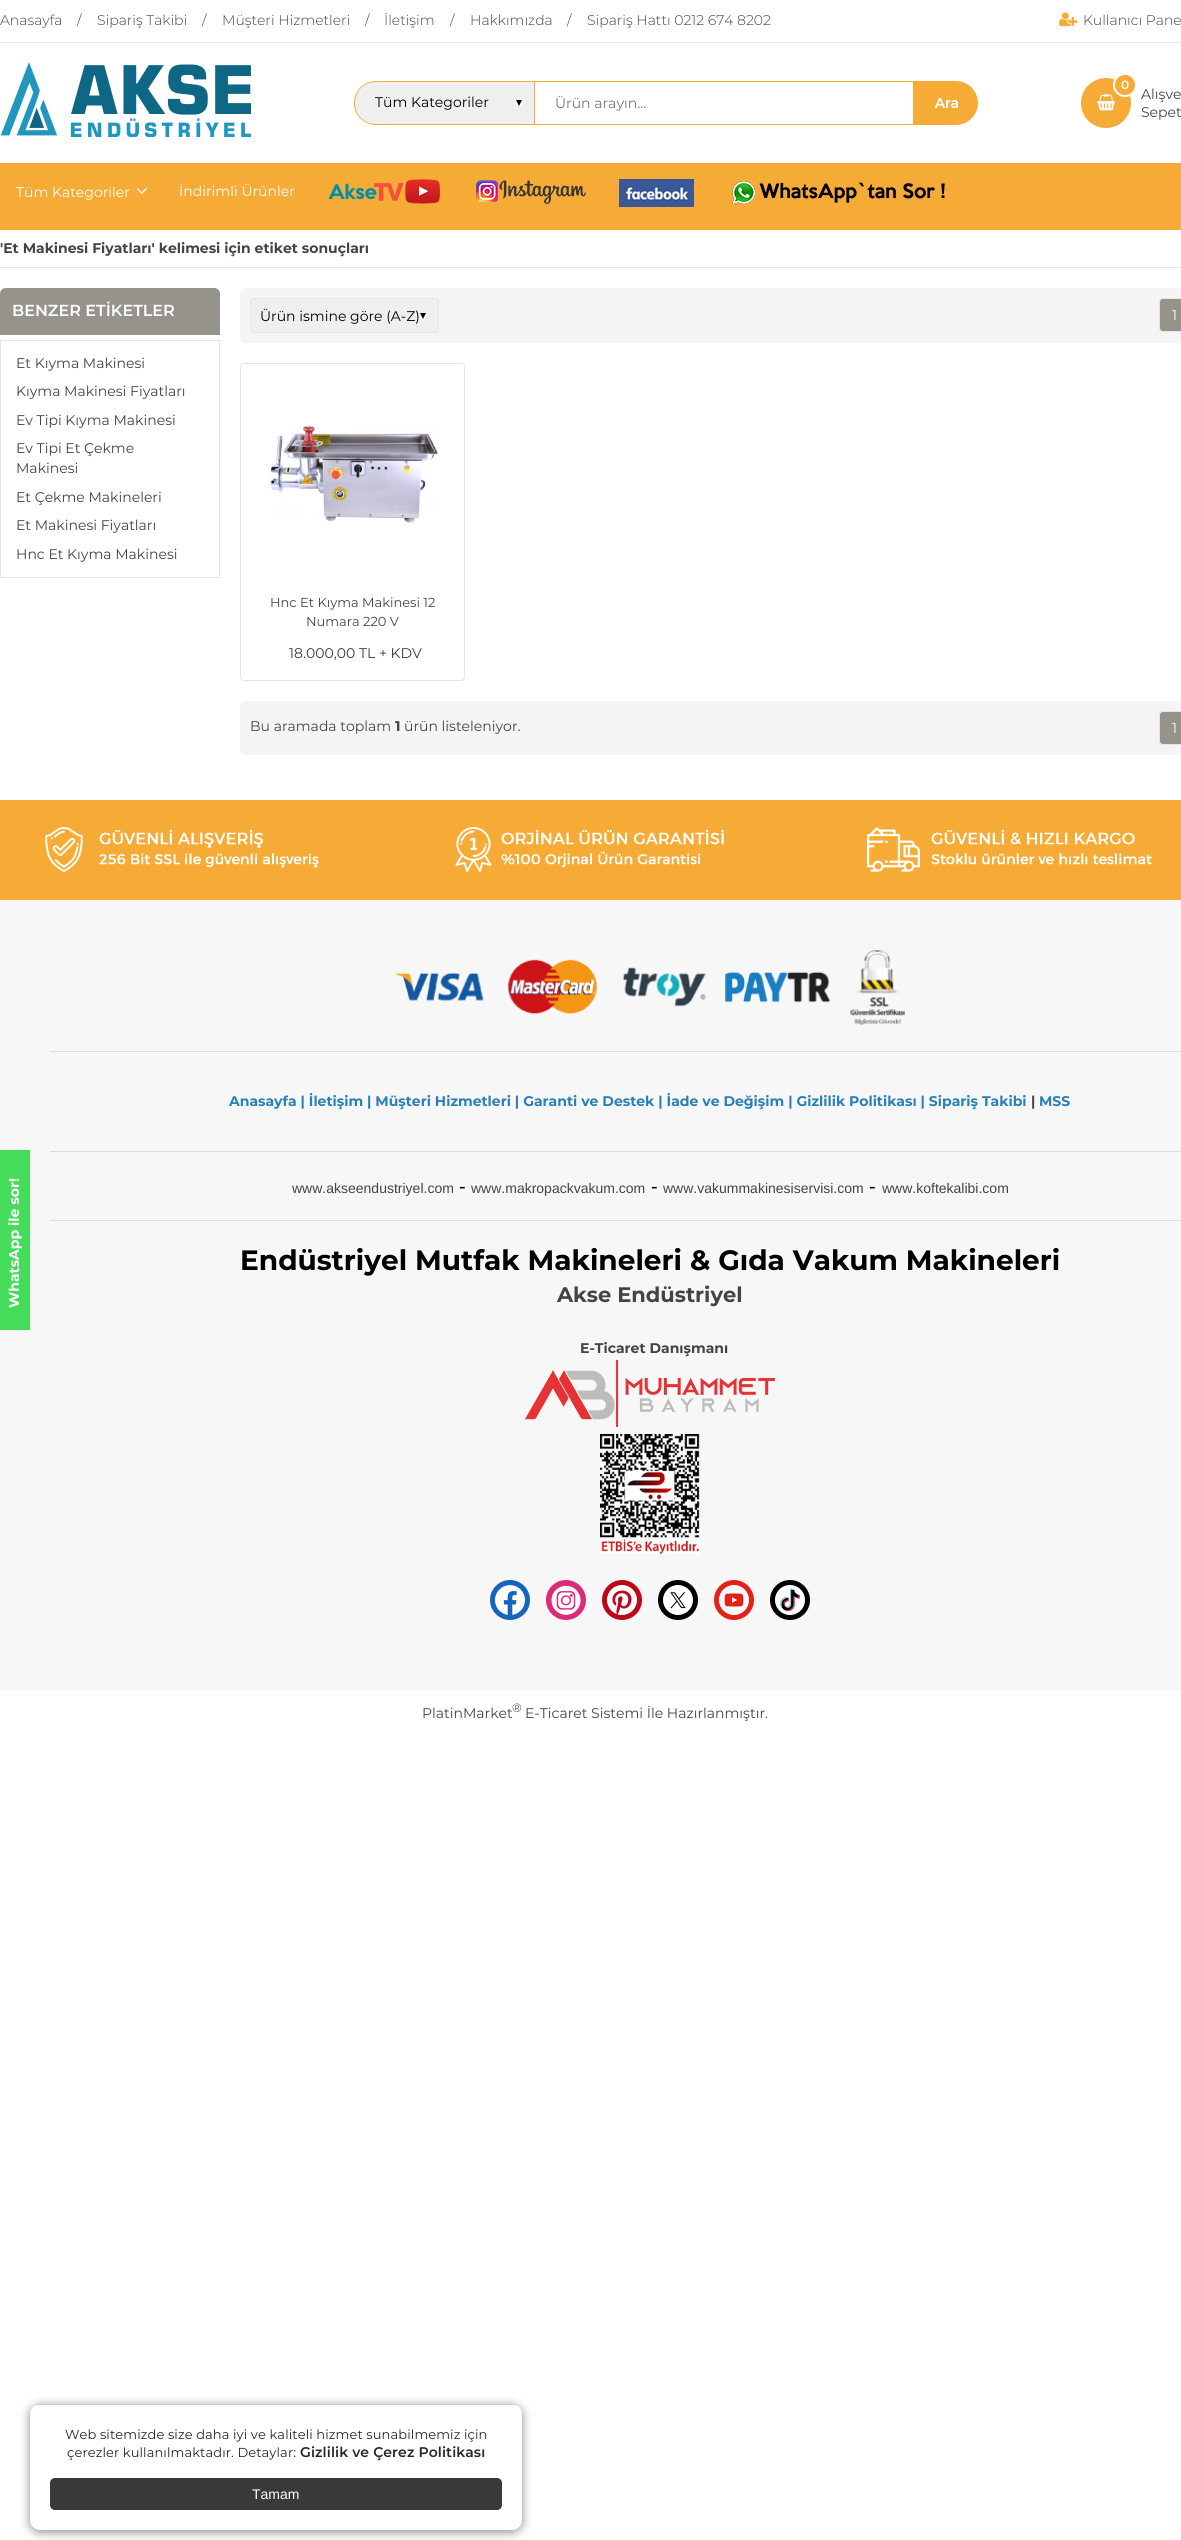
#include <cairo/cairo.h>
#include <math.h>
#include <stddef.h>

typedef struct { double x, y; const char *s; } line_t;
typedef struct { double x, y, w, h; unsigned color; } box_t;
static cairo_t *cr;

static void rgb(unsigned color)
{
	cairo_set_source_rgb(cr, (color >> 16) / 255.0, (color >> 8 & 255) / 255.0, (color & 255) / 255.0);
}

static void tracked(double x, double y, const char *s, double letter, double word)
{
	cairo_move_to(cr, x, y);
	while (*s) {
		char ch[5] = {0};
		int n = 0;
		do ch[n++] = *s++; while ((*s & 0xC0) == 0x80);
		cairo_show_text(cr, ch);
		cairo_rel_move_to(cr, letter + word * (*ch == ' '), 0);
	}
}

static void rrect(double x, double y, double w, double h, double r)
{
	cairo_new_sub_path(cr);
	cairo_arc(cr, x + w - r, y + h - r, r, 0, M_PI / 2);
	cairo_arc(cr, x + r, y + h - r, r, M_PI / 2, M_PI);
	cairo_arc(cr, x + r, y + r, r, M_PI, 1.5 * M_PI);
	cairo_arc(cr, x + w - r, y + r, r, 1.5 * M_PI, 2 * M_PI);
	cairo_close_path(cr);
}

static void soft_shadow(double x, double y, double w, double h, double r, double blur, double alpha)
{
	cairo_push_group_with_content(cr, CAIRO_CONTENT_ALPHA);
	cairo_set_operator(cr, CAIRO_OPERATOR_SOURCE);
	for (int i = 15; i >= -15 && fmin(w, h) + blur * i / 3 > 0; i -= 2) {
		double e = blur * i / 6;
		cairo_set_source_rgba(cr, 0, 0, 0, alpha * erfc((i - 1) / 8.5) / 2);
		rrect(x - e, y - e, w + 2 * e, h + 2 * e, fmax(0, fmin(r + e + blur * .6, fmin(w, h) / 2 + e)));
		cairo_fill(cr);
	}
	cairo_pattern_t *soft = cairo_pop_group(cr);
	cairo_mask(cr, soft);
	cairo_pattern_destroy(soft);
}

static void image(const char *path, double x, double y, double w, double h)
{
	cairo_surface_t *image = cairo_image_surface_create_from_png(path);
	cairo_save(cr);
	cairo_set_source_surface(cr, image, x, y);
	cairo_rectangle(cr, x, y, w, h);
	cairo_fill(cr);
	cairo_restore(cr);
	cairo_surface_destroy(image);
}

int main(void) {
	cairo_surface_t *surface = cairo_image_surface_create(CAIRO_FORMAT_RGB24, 1181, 2540);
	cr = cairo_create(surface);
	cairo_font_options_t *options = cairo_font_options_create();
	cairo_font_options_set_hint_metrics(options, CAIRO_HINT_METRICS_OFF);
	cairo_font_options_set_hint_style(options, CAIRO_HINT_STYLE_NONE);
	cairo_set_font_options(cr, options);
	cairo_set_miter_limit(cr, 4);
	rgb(0xffffff);
	cairo_paint(cr);
	rgb(0xe5e5e5);
	cairo_rectangle(cr, 0, 42, 1181, 1);
	cairo_fill(cr);
	image("img/1.png", 1059, 12, 19, 15);
	image("img/2.png", 0, 62, 251, 75);
	rgb(0xefefef);
	cairo_new_path(cr);
	cairo_move_to(cr, 376, 81);
	cairo_line_to(cr, 534, 81);
	cairo_line_to(cr, 534, 125);
	cairo_line_to(cr, 376, 125);
	cairo_curve_to(cr, 364, 125, 354, 115, 354, 103);
	cairo_curve_to(cr, 354, 91, 364, 81, 376, 81);
	cairo_close_path(cr);
	cairo_fill(cr);
	image("img/3.png", 516, 100, 6, 6);
	rgb(0xf5ab35);
	cairo_set_fill_rule(cr, CAIRO_FILL_RULE_EVEN_ODD);
	cairo_new_path(cr);
	cairo_move_to(cr, 376, 81);
	cairo_line_to(cr, 534, 81);
	cairo_line_to(cr, 534, 125);
	cairo_line_to(cr, 376, 125);
	cairo_curve_to(cr, 364, 125, 354, 115, 354, 103);
	cairo_curve_to(cr, 354, 91, 364, 81, 376, 81);
	cairo_close_path(cr);
	cairo_move_to(cr, 376, 82);
	cairo_line_to(cr, 534, 82);
	cairo_line_to(cr, 534, 124);
	cairo_line_to(cr, 376, 124);
	cairo_curve_to(cr, 364, 124, 355, 115, 355, 103);
	cairo_curve_to(cr, 355, 91, 364, 82, 376, 82);
	cairo_close_path(cr);
	cairo_fill(cr);
	cairo_rectangle(cr, 534.5, 81.5, 379, 43);
	cairo_set_line_width(cr, 1);
	cairo_stroke(cr);
	cairo_new_path(cr);
	cairo_move_to(cr, 914, 81);
	cairo_line_to(cr, 956, 81);
	cairo_curve_to(cr, 968, 81, 978, 91, 978, 103);
	cairo_curve_to(cr, 978, 115, 968, 125, 956, 125);
	cairo_line_to(cr, 914, 125);
	cairo_close_path(cr);
	cairo_fill(cr);
	image("img/4.png", 934, 98, 24, 10);
	cairo_arc(cr, 1106, 103, 25, 0, 2 * M_PI);
	cairo_fill(cr);
	image("img/5.png", 1097, 94, 19, 17);
	cairo_arc(cr, 1125, 85, 11, 0, 2 * M_PI);
	cairo_fill_preserve(cr);
	rgb(0xffffff);
	cairo_set_line_width(cr, 2);
	cairo_stroke(cr);
	rgb(0xf5ab35);
	cairo_rectangle(cr, 0, 163, 1181, 67);
	cairo_fill(cr);
	image("img/6.png", 136, 188, 11, 6);
	image("img/7.png", 328, 179, 113, 25);
	image("img/8.png", 476, 180, 110, 24);
	image("img/9.png", 619, 179, 75, 28);
	image("img/10.png", 726, 179, 219, 25);
	rgb(0xe5e5e5);
	cairo_rectangle(cr, 0, 267, 1181, 1);
	cairo_fill(cr);
	rgb(0x888888);
	soft_shadow(30, 2406, 492, 126, 10, 5, 1);
	rgb(0xffffff);
	rrect(30, 2404, 492, 126, 10);
	cairo_fill(cr);
	rgb(0xcccccc);
	cairo_rectangle(cr, 35, 2404, 482, 1);
	cairo_fill(cr);
	rgb(0x37393b);
	rrect(50, 2478, 452, 32, 5);
	cairo_fill(cr);
	rgb(0x96938b);
	cairo_new_path(cr);
	cairo_move_to(cr, 6, 288);
	cairo_line_to(cr, 214, 288);
	cairo_curve_to(cr, 217.5, 288, 220, 290.5, 220, 294);
	cairo_line_to(cr, 220, 335);
	cairo_line_to(cr, 0, 335);
	cairo_line_to(cr, 0, 294);
	cairo_curve_to(cr, 0, 290.5, 2.5, 288, 6, 288);
	cairo_close_path(cr);
	cairo_fill(cr);
	cairo_rectangle(cr, 0.5, 340.5, 219, 237);
	rgb(0xe5e5e5);
	cairo_set_line_width(cr, 1);
	cairo_stroke(cr);
	rgb(0xf5f5f5);
	rrect(240, 288, 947, 55, 6);
	cairo_fill(cr);
	rgb(0xefefef);
	rrect(250, 298, 189, 35, 4);
	cairo_fill(cr);
	image("img/3.png", 420, 313, 6, 6);
	rrect(250.5, 298.5, 188, 34, 3.5);
	rgb(0xe5e5e5);
	cairo_stroke(cr);
	rgb(0x96938b);
	rrect(1159.5, 298.5, 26, 33, 3.5);
	cairo_fill_preserve(cr);
	rgb(0xe5e5e5);
	cairo_stroke(cr);
	rrect(240.5, 363.5, 224, 317, 3.5);
	cairo_stroke(cr);
	image("img/11.png", 270, 425, 168, 98);
	rgb(0xf5f5f5);
	rrect(240, 701, 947, 54, 6);
	cairo_fill(cr);
	rgb(0x96938b);
	rrect(1159.5, 711.5, 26, 33, 3.5);
	cairo_fill_preserve(cr);
	rgb(0xe5e5e5);
	cairo_stroke(cr);
	rgb(0xf5ab35);
	cairo_rectangle(cr, 0, 800, 1181, 100);
	cairo_fill(cr);
	image("img/12.png", 45, 827, 1107, 45);
	rgb(0xf7f7f7);
	cairo_rectangle(cr, 0, 900, 1181, 790);
	cairo_fill(cr);
	rgb(0x45dc5c);
	cairo_rectangle(cr, 0, 1150, 30, 180);
	cairo_fill(cr);
	image("img/13.png", 396, 950, 509, 75);
	{
		static const box_t items[] = {
			{50, 1051, 1131, 1, 0xdedede},
			{50, 1151, 1131, 1, 0xdedede},
			{50, 1220, 1131, 1, 0xdedede},
		};
		for (size_t i = 0; i < sizeof items / sizeof *items; i++) {
			rgb(items[i].color);
			cairo_rectangle(cr, items[i].x, items[i].y, items[i].w, items[i].h);
			cairo_fill(cr);
		}
	}
	image("img/14.png", 525, 1360, 250, 67);
	image("img/15.png", 600, 1434, 100, 120);
	rgb(0x1565c0);
	cairo_arc(cr, 510, 1600, 20, 0, 2 * M_PI);
	cairo_fill(cr);
	image("img/16.png", 495, 1585, 30, 30);
	rgb(0xdd2a7b);
	cairo_arc(cr, 566, 1600, 20, 0, 2 * M_PI);
	cairo_fill(cr);
	image("img/17.png", 551, 1585, 30, 30);
	rgb(0xbd081c);
	cairo_arc(cr, 622, 1600, 20, 0, 2 * M_PI);
	cairo_fill(cr);
	image("img/18.png", 607, 1585, 30, 30);
	rgb(0x000000);
	cairo_arc(cr, 678, 1600, 20, 0, 2 * M_PI);
	cairo_fill(cr);
	image("img/19.png", 663, 1585, 30, 30);
	rgb(0xe62117);
	cairo_arc(cr, 734, 1600, 20, 0, 2 * M_PI);
	cairo_fill(cr);
	image("img/20.png", 719, 1585, 30, 30);
	image("img/21.png", 770, 1580, 40, 40);
	cairo_select_font_face(cr, "Montserrat Light", CAIRO_FONT_SLANT_NORMAL, CAIRO_FONT_WEIGHT_NORMAL);
	cairo_set_font_size(cr, 14);
	rgb(0x444444);
	{
		static const line_t items[] = {
			{0, 25, "Anasayfa"},
			{77, 25, "/"},
			{97, 25, "Sipariş Takibi"},
			{202, 25, "/"},
			{222, 25, "Müşteri Hizmetleri"},
			{365, 25, "/"},
			{384, 25, "İletişim"},
			{450, 25, "/"},
			{470, 25, "Hakkımızda"},
			{567, 25, "/"},
			{587, 25, "Sipariş Hattı 0212 674 8202"},
			{1083, 25, "Kullanıcı Pane"},
		};
		for (size_t i = 0; i < sizeof items / sizeof *items; i++) {
			cairo_move_to(cr, items[i].x, items[i].y);
			cairo_show_text(cr, items[i].s);
		}
	}
	cairo_select_font_face(cr, "Montserrat", CAIRO_FONT_SLANT_NORMAL, CAIRO_FONT_WEIGHT_NORMAL);
	rgb(0x000000);
	cairo_move_to(cr, 375, 107);
	cairo_show_text(cr, "Tüm Kategoriler");
	rgb(0x757575);
	cairo_move_to(cr, 555, 108);
	cairo_show_text(cr, "Ürün arayın...");
	cairo_select_font_face(cr, "Montserrat SemiBold", CAIRO_FONT_SLANT_NORMAL, CAIRO_FONT_WEIGHT_NORMAL);
	cairo_set_font_size(cr, 12);
	rgb(0xffffff);
	cairo_move_to(cr, 1121, 89);
	cairo_show_text(cr, "0");
	cairo_select_font_face(cr, "Montserrat", CAIRO_FONT_SLANT_NORMAL, CAIRO_FONT_WEIGHT_NORMAL);
	cairo_set_font_size(cr, 14);
	rgb(0x444444);
	cairo_move_to(cr, 1141, 99);
	cairo_show_text(cr, "Alışve");
	cairo_move_to(cr, 1141, 117);
	cairo_show_text(cr, "Sepet");
	rgb(0xffffff);
	cairo_move_to(cr, 16, 197);
	cairo_show_text(cr, "Tüm Kategoriler");
	cairo_move_to(cr, 179, 196);
	cairo_show_text(cr, "İndirimli Ürünler");
	cairo_select_font_face(cr, "Montserrat", CAIRO_FONT_SLANT_NORMAL, CAIRO_FONT_WEIGHT_BOLD);
	rgb(0x444444);
	cairo_move_to(cr, 0, 253);
	cairo_show_text(cr, "'Et Makinesi Fiyatları' kelimesi için etiket sonuçları");
	cairo_select_font_face(cr, "Montserrat", CAIRO_FONT_SLANT_NORMAL, CAIRO_FONT_WEIGHT_NORMAL);
	cairo_set_font_size(cr, 13);
	rgb(0x262626);
	tracked(65, 2439, "Web sitemizde size daha iyi ve kaliteli hizmet sunabilmemiz için", 0.1, 0);
	tracked(67, 2457, "çerezler kullanılmaktadır. Detaylar:", 0.1, 0);
	cairo_select_font_face(cr, "Montserrat SemiBold", CAIRO_FONT_SLANT_NORMAL, CAIRO_FONT_WEIGHT_NORMAL);
	cairo_set_font_size(cr, 14);
	tracked(300, 2457, "Gizlilik ve Çerez Politikası", 0.1, 0);
	cairo_select_font_face(cr, "Liberation Sans", CAIRO_FONT_SLANT_NORMAL, CAIRO_FONT_WEIGHT_NORMAL);
	rgb(0xffffff);
	cairo_move_to(cr, 252, 2499);
	cairo_show_text(cr, "Tamam");
	cairo_select_font_face(cr, "Montserrat SemiBold", CAIRO_FONT_SLANT_NORMAL, CAIRO_FONT_WEIGHT_NORMAL);
	cairo_set_font_size(cr, 16);
	cairo_move_to(cr, 12, 316);
	cairo_show_text(cr, "BENZER ETİKETLER");
	cairo_select_font_face(cr, "Montserrat", CAIRO_FONT_SLANT_NORMAL, CAIRO_FONT_WEIGHT_NORMAL);
	cairo_set_font_size(cr, 14);
	rgb(0x444444);
	{
		static const line_t items[] = {
			{16, 368, "Et Kıyma Makinesi"},
			{16, 396, "Kıyma Makinesi Fiyatları"},
			{16, 425, "Ev Tipi Kıyma Makinesi"},
			{16, 453, "Ev Tipi Et Çekme"},
			{16, 473, "Makinesi"},
			{16, 502, "Et Çekme Makineleri"},
			{16, 530, "Et Makinesi Fiyatları"},
			{16, 559, "Hnc Et Kıyma Makinesi"},
		};
		for (size_t i = 0; i < sizeof items / sizeof *items; i++) {
			cairo_move_to(cr, items[i].x, items[i].y);
			cairo_show_text(cr, items[i].s);
		}
	}
	rgb(0x000000);
	cairo_move_to(cr, 260, 321);
	cairo_show_text(cr, "Ürün ismine göre (A-Z)");
	rgb(0xffffff);
	cairo_move_to(cr, 1172, 320);
	cairo_show_text(cr, "1");
	cairo_set_font_size(cr, 13);
	rgb(0x444444);
	cairo_move_to(cr, 270, 607);
	cairo_show_text(cr, "Hnc Et Kıyma Makinesi 12");
	cairo_move_to(cr, 306, 626);
	cairo_show_text(cr, "Numara 220 V");
	cairo_set_font_size(cr, 14);
	rgb(0x373a3f);
	cairo_move_to(cr, 289, 658);
	cairo_show_text(cr, "18.000,00 TL + KDV");
	rgb(0x444444);
	cairo_move_to(cr, 250, 731);
	cairo_show_text(cr, "Bu aramada toplam");
	cairo_select_font_face(cr, "Montserrat", CAIRO_FONT_SLANT_NORMAL, CAIRO_FONT_WEIGHT_BOLD);
	cairo_move_to(cr, 395, 731);
	cairo_show_text(cr, "1");
	cairo_select_font_face(cr, "Montserrat", CAIRO_FONT_SLANT_NORMAL, CAIRO_FONT_WEIGHT_NORMAL);
	cairo_move_to(cr, 404, 731);
	cairo_show_text(cr, "ürün listeleniyor.");
	rgb(0xffffff);
	cairo_move_to(cr, 1172, 733);
	cairo_show_text(cr, "1");
	cairo_select_font_face(cr, "Montserrat", CAIRO_FONT_SLANT_NORMAL, CAIRO_FONT_WEIGHT_BOLD);
	cairo_save(cr);
	cairo_translate(cr, 19, 1308);
	cairo_rotate(cr, -90 * M_PI / 180);
	cairo_move_to(cr, 0, 0);
	cairo_show_text(cr, "WhatsApp ile sor!");
	cairo_restore(cr);
	rgb(0x2980b9);
	cairo_move_to(cr, 229, 1106);
	cairo_show_text(cr, "Anasayfa | İletişim | Müşteri Hizmetleri | Garanti ve Destek | İade ve Değişim | Gizlilik Politikası | Sipariş Takibi");
	rgb(0x444444);
	cairo_move_to(cr, 1031, 1106);
	cairo_show_text(cr, "|");
	rgb(0x2980b9);
	cairo_move_to(cr, 1039, 1106);
	cairo_show_text(cr, "MSS");
	cairo_select_font_face(cr, "Liberation Sans", CAIRO_FONT_SLANT_NORMAL, CAIRO_FONT_WEIGHT_NORMAL);
	rgb(0x444444);
	cairo_move_to(cr, 292, 1193);
	cairo_show_text(cr, "www.akseendustriyel.com");
	cairo_set_font_size(cr, 20);
	rgb(0x000000);
	cairo_move_to(cr, 459, 1193);
	cairo_show_text(cr, "-");
	cairo_set_font_size(cr, 14);
	rgb(0x444444);
	cairo_move_to(cr, 471, 1193);
	cairo_show_text(cr, "www.makropackvakum.com");
	cairo_set_font_size(cr, 20);
	rgb(0x000000);
	cairo_move_to(cr, 651, 1193);
	cairo_show_text(cr, "-");
	cairo_set_font_size(cr, 14);
	rgb(0x444444);
	cairo_move_to(cr, 663, 1193);
	cairo_show_text(cr, "www.vakummakinesiservisi.com");
	cairo_set_font_size(cr, 20);
	rgb(0x000000);
	cairo_move_to(cr, 869, 1193);
	cairo_show_text(cr, "-");
	cairo_set_font_size(cr, 14);
	rgb(0x444444);
	cairo_move_to(cr, 882, 1193);
	cairo_show_text(cr, "www.koftekalibi.com");
	cairo_select_font_face(cr, "Montserrat", CAIRO_FONT_SLANT_NORMAL, CAIRO_FONT_WEIGHT_BOLD);
	cairo_set_font_size(cr, 28);
	rgb(0x000000);
	cairo_move_to(cr, 240, 1270);
	cairo_show_text(cr, "Endüstriyel Mutfak Makineleri & Gıda Vakum Makineleri");
	cairo_set_font_size(cr, 21);
	rgb(0x444444);
	cairo_move_to(cr, 557, 1302);
	cairo_show_text(cr, "Akse Endüstriyel");
	cairo_set_font_size(cr, 14);
	cairo_move_to(cr, 580, 1353);
	cairo_show_text(cr, "E-Ticaret Danışmanı");
	cairo_select_font_face(cr, "Montserrat", CAIRO_FONT_SLANT_NORMAL, CAIRO_FONT_WEIGHT_NORMAL);
	cairo_move_to(cr, 422, 1718);
	cairo_show_text(cr, "PlatinMarket");
	cairo_set_font_size(cr, 12);
	cairo_move_to(cr, 512, 1712);
	cairo_show_text(cr, "®");
	cairo_set_font_size(cr, 14);
	cairo_move_to(cr, 525, 1718);
	cairo_show_text(cr, "E-Ticaret Sistemi İle Hazırlanmıştır.");
	cairo_surface_write_to_png(surface, "page.png");
	cairo_font_options_destroy(options);
	cairo_destroy(cr);
	cairo_surface_destroy(surface);
	return 0;
}
